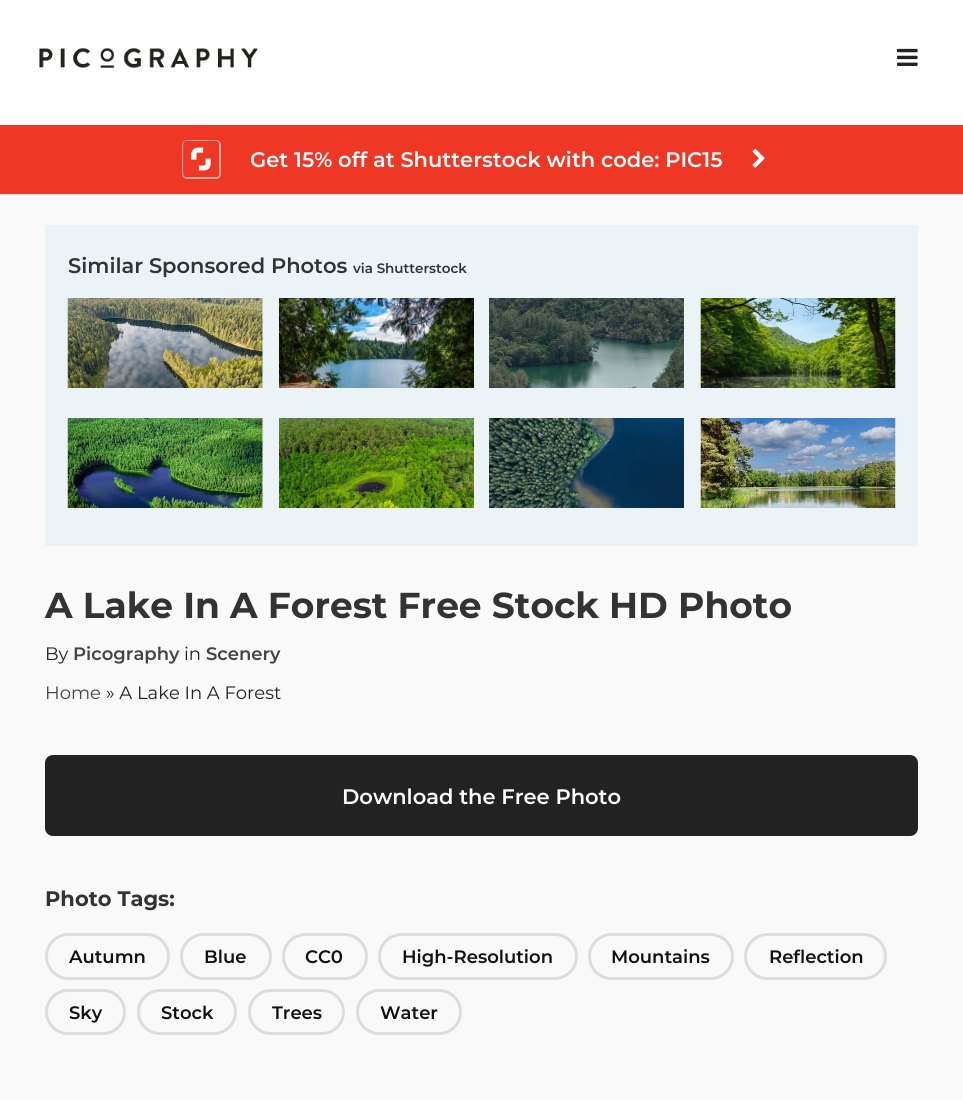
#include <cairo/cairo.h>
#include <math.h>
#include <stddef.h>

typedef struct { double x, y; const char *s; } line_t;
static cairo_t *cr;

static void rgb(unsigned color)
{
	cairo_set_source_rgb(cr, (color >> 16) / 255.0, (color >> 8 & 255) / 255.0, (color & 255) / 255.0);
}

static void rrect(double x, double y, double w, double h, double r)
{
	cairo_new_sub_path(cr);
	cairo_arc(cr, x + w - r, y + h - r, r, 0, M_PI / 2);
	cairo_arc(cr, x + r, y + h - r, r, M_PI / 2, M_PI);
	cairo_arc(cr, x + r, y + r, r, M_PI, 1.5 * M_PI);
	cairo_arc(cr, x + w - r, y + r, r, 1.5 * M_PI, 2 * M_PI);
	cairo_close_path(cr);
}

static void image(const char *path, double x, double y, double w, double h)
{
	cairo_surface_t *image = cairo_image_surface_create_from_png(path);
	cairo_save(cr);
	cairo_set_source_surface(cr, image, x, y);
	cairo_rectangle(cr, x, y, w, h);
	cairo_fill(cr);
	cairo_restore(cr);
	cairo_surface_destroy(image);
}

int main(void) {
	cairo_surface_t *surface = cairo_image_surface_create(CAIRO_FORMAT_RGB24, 963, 1100);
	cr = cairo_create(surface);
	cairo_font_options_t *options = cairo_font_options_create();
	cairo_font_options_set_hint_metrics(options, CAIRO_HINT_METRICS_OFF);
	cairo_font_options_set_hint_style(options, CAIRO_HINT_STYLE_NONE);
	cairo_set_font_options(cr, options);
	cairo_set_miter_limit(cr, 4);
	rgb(0xf9f9f9);
	cairo_paint(cr);
	rgb(0xffffff);
	cairo_rectangle(cr, 0, 0, 963, 125);
	cairo_fill(cr);
	rgb(0xeeeeee);
	cairo_rectangle(cr, 0, 194, 963, 2);
	cairo_fill(cr);
	image("img/1.png", 39, 47, 219, 21);
	image("img/2.png", 897, 48, 21, 18);
	rgb(0xee3724);
	cairo_rectangle(cr, 0, 125, 963, 69);
	cairo_fill(cr);
	rrect(183, 141, 37, 37, 4);
	rgb(0xf7a59c);
	cairo_stroke(cr);
	image("img/3.png", 183, 141, 36, 36);
	image("img/4.png", 752, 148, 13, 20);
	rgb(0xecf3f7);
	cairo_rectangle(cr, 45, 225, 873, 321);
	cairo_fill(cr);
	image("img/5.png", 67, 298, 196, 90);
	image("img/6.png", 279, 298, 195, 90);
	image("img/7.png", 489, 298, 195, 90);
	image("img/8.png", 700, 298, 196, 90);
	image("img/9.png", 67, 418, 196, 90);
	image("img/10.png", 279, 418, 195, 90);
	image("img/11.png", 489, 418, 195, 90);
	image("img/12.png", 700, 418, 196, 90);
	rgb(0x222222);
	rrect(45, 755, 873, 81, 8);
	cairo_fill(cr);
	rrect(46.5, 934.5, 122, 44, 22);
	rgb(0xdddddd);
	cairo_set_line_width(cr, 3);
	cairo_stroke(cr);
	rrect(181.5, 934.5, 89, 44, 22);
	cairo_stroke(cr);
	rrect(283.5, 934.5, 83, 44, 22);
	cairo_stroke(cr);
	rrect(379.5, 934.5, 197, 44, 22);
	cairo_stroke(cr);
	rrect(589.5, 934.5, 143, 44, 22);
	cairo_stroke(cr);
	rrect(745.5, 934.5, 140, 44, 22);
	cairo_stroke(cr);
	rrect(46.5, 990.5, 78, 43, 21.5);
	cairo_stroke(cr);
	rrect(138.5, 990.5, 97, 43, 21.5);
	cairo_stroke(cr);
	rrect(249.5, 990.5, 94, 43, 21.5);
	cairo_stroke(cr);
	rrect(357.5, 990.5, 103, 43, 21.5);
	cairo_stroke(cr);
	cairo_select_font_face(cr, "Montserrat SemiBold", CAIRO_FONT_SLANT_NORMAL, CAIRO_FONT_WEIGHT_NORMAL);
	cairo_set_font_size(cr, 21);
	rgb(0xffffff);
	cairo_move_to(cr, 250, 167);
	cairo_show_text(cr, "Get 15% off at Shutterstock with code: PIC15");
	rgb(0x333333);
	cairo_move_to(cr, 68, 273);
	cairo_show_text(cr, "Similar Sponsored Photos");
	cairo_set_font_size(cr, 13.5);
	cairo_move_to(cr, 353, 273);
	cairo_show_text(cr, "via Shutterstock");
	cairo_select_font_face(cr, "Montserrat", CAIRO_FONT_SLANT_NORMAL, CAIRO_FONT_WEIGHT_BOLD);
	cairo_set_font_size(cr, 36);
	cairo_move_to(cr, 45, 618);
	cairo_show_text(cr, "A Lake In A Forest Free Stock HD Photo");
	cairo_select_font_face(cr, "Montserrat", CAIRO_FONT_SLANT_NORMAL, CAIRO_FONT_WEIGHT_NORMAL);
	cairo_set_font_size(cr, 18);
	rgb(0x222222);
	cairo_move_to(cr, 45, 660);
	cairo_show_text(cr, "By");
	cairo_select_font_face(cr, "Montserrat SemiBold", CAIRO_FONT_SLANT_NORMAL, CAIRO_FONT_WEIGHT_NORMAL);
	rgb(0x444444);
	cairo_move_to(cr, 73, 660);
	cairo_show_text(cr, "Picography");
	cairo_select_font_face(cr, "Montserrat", CAIRO_FONT_SLANT_NORMAL, CAIRO_FONT_WEIGHT_NORMAL);
	rgb(0x222222);
	cairo_move_to(cr, 184, 660);
	cairo_show_text(cr, "in");
	cairo_select_font_face(cr, "Montserrat SemiBold", CAIRO_FONT_SLANT_NORMAL, CAIRO_FONT_WEIGHT_NORMAL);
	rgb(0x444444);
	cairo_move_to(cr, 206, 660);
	cairo_show_text(cr, "Scenery");
	cairo_select_font_face(cr, "Montserrat", CAIRO_FONT_SLANT_NORMAL, CAIRO_FONT_WEIGHT_NORMAL);
	cairo_move_to(cr, 45, 699);
	cairo_show_text(cr, "Home");
	rgb(0x222222);
	cairo_move_to(cr, 106, 699);
	cairo_show_text(cr, "» A Lake In A Forest");
	cairo_select_font_face(cr, "Montserrat SemiBold", CAIRO_FONT_SLANT_NORMAL, CAIRO_FONT_WEIGHT_NORMAL);
	cairo_set_font_size(cr, 21);
	rgb(0xffffff);
	cairo_move_to(cr, 342, 804);
	cairo_show_text(cr, "Download the Free Photo");
	cairo_select_font_face(cr, "Montserrat", CAIRO_FONT_SLANT_NORMAL, CAIRO_FONT_WEIGHT_BOLD);
	rgb(0x333333);
	cairo_move_to(cr, 45, 906);
	cairo_show_text(cr, "Photo Tags:");
	cairo_select_font_face(cr, "Montserrat SemiBold", CAIRO_FONT_SLANT_NORMAL, CAIRO_FONT_WEIGHT_NORMAL);
	cairo_set_font_size(cr, 18);
	rgb(0x111111);
	{
		static const line_t items[] = {
			{69, 963, "Autumn"},
			{204, 963, "Blue"},
			{305, 963, "CC0"},
			{402, 963, "High-Resolution"},
			{611, 963, "Mountains"},
			{769, 963, "Reflection"},
			{69, 1019, "Sky"},
			{161, 1019, "Stock"},
			{272, 1019, "Trees"},
			{380, 1019, "Water"},
		};
		for (size_t i = 0; i < sizeof items / sizeof *items; i++) {
			cairo_move_to(cr, items[i].x, items[i].y);
			cairo_show_text(cr, items[i].s);
		}
	}
	cairo_surface_write_to_png(surface, "page.png");
	cairo_font_options_destroy(options);
	cairo_destroy(cr);
	cairo_surface_destroy(surface);
	return 0;
}
